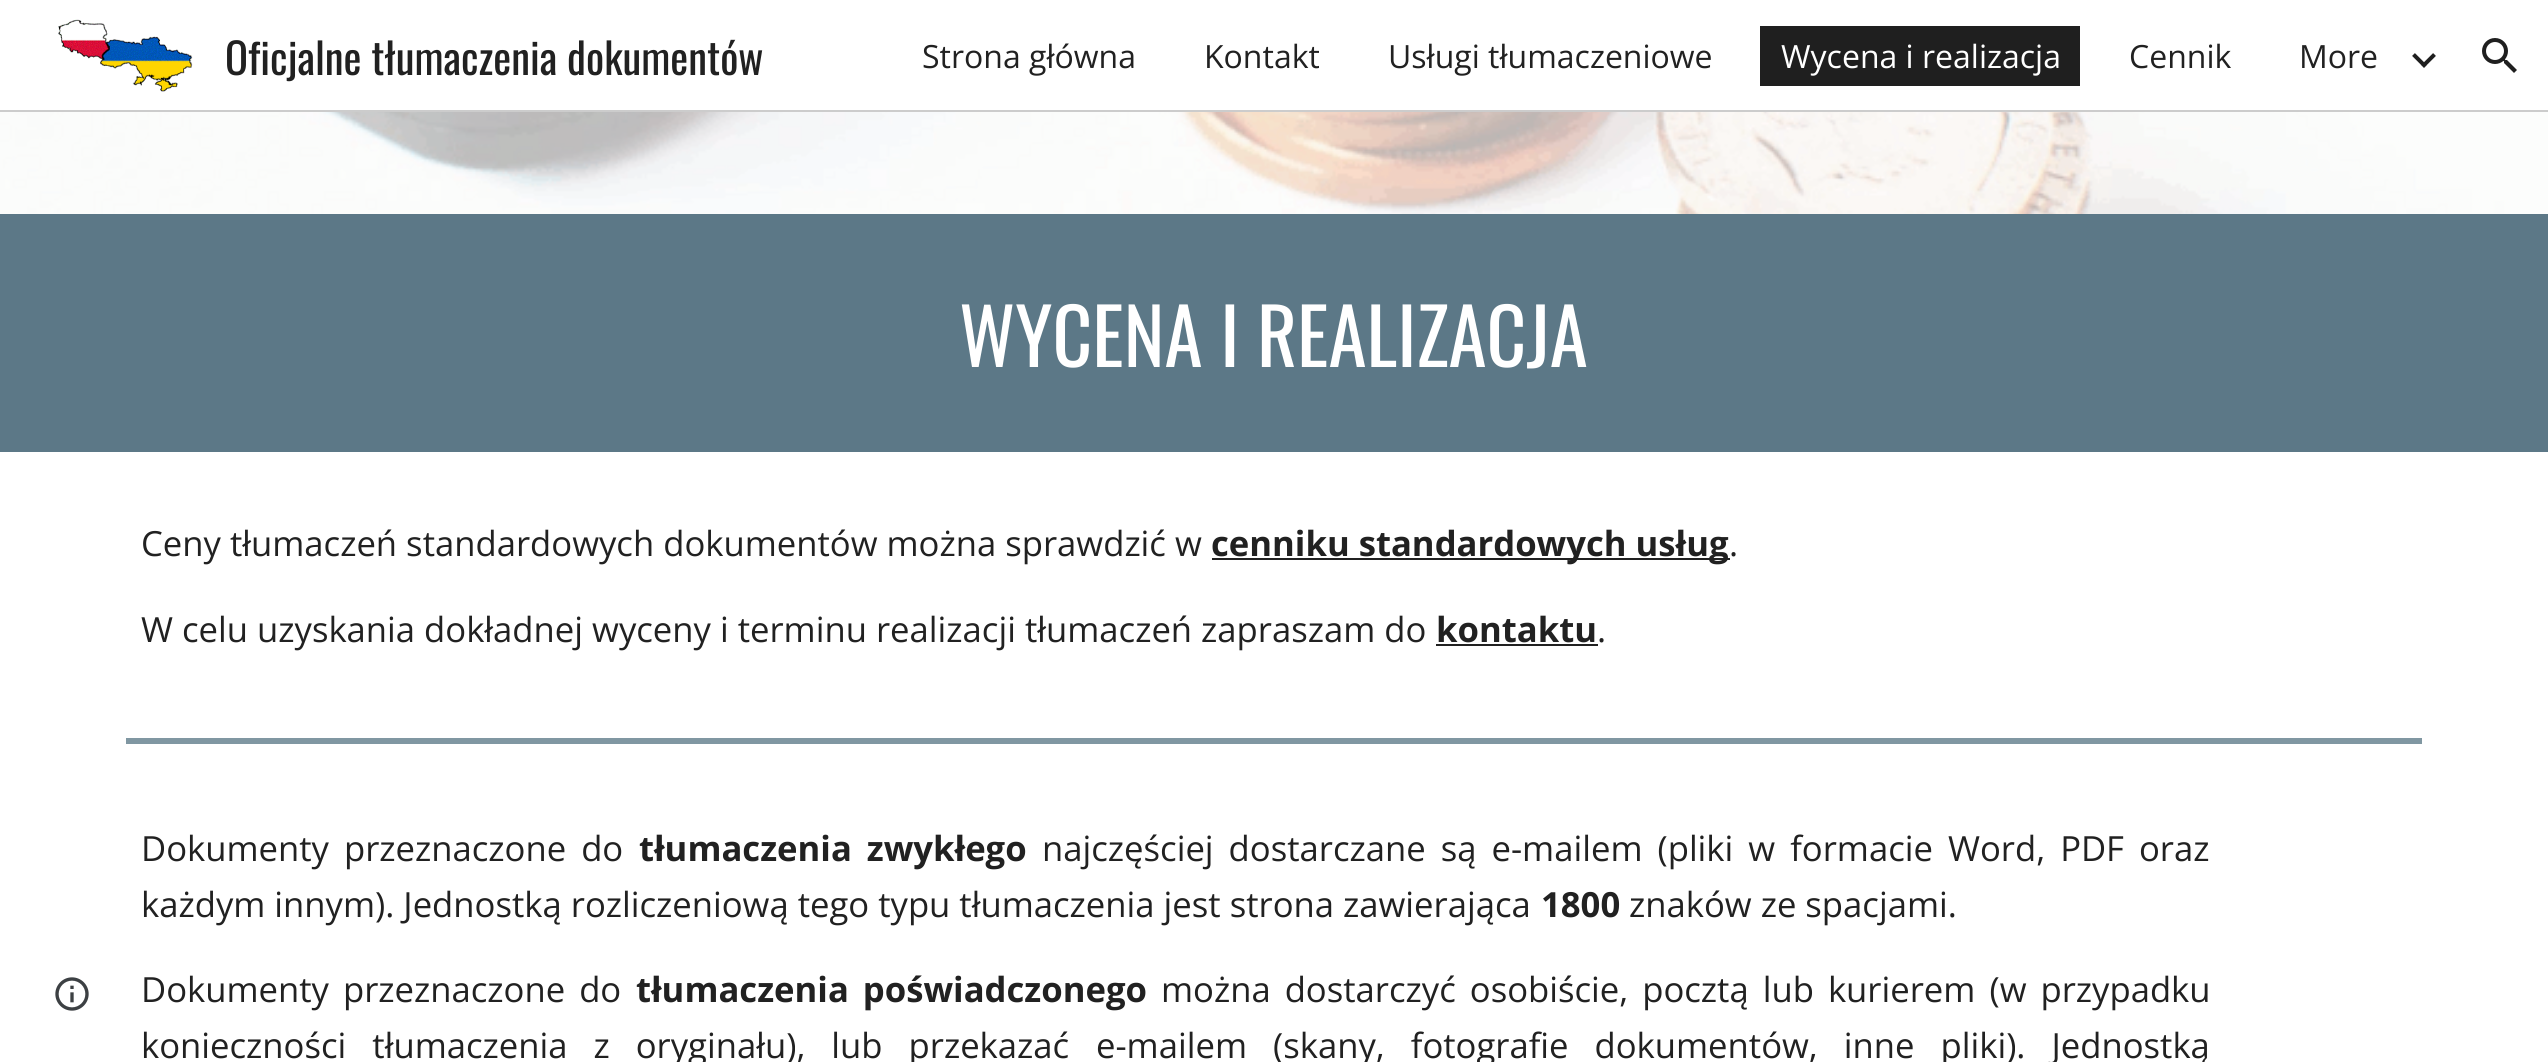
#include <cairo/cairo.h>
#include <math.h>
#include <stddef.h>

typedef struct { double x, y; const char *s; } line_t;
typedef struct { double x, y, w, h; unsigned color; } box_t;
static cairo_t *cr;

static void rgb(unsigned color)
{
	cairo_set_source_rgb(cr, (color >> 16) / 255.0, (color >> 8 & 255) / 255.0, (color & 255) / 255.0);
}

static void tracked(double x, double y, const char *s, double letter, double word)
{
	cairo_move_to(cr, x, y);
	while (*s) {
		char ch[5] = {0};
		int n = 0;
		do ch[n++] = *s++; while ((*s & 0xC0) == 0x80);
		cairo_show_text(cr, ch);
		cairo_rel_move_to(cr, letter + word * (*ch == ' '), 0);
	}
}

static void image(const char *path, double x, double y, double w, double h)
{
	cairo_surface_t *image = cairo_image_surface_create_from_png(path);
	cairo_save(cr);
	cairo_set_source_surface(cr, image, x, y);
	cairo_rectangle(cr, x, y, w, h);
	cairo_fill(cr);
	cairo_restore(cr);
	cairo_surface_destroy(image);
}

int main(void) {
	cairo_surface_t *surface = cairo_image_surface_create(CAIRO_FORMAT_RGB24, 2548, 1062);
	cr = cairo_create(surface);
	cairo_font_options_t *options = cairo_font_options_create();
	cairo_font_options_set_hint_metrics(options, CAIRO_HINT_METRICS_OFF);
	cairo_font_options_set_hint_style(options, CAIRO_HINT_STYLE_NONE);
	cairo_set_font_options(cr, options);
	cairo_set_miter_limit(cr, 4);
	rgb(0xffffff);
	cairo_paint(cr);
	image("img/1.png", 58, 19, 135, 73);
	rgb(0x1f1f1f);
	cairo_rectangle(cr, 1760, 26, 320, 60);
	cairo_fill(cr);
	cairo_new_path(cr);
	cairo_move_to(cr, 2413.5, 54.5);
	cairo_line_to(cr, 2425.5, 66.5);
	cairo_move_to(cr, 2422.5, 66.5);
	cairo_line_to(cr, 2434.5, 54.5);
	cairo_set_line_width(cr, 4);
	cairo_stroke(cr);
	image("img/2.png", 2482, 38, 35, 35);
	rgb(0xcccccc);
	cairo_rectangle(cr, 0, 110, 2548, 2);
	cairo_fill(cr);
	image("img/3.png", 55, 977, 34, 34);
	image("img/4.png", 0, 112, 2548, 102);
	{
		static const box_t items[] = {
			{0, 214, 2548, 238, 0x5c7887},
			{1212, 558, 518, 2, 0x212121},
			{1436, 644, 162, 2, 0x212121},
			{126, 738, 2296, 6, 0x8097a2},
		};
		for (size_t i = 0; i < sizeof items / sizeof *items; i++) {
			rgb(items[i].color);
			cairo_rectangle(cr, items[i].x, items[i].y, items[i].w, items[i].h);
			cairo_fill(cr);
		}
	}
	cairo_select_font_face(cr, "Oswald", CAIRO_FONT_SLANT_NORMAL, CAIRO_FONT_WEIGHT_NORMAL);
	cairo_set_font_size(cr, 42.7);
	rgb(0x212121);
	cairo_move_to(cr, 225, 75);
	cairo_show_text(cr, "Oficjalne tłumaczenia dokumentów");
	cairo_select_font_face(cr, "Open Sans", CAIRO_FONT_SLANT_NORMAL, CAIRO_FONT_WEIGHT_NORMAL);
	cairo_set_font_size(cr, 32);
	{
		static const line_t items[] = {
			{922, 68, "Strona główna"},
			{1204, 68, "Kontakt"},
			{1388, 68, "Usługi tłumaczeniowe"},
		};
		for (size_t i = 0; i < sizeof items / sizeof *items; i++) {
			cairo_move_to(cr, items[i].x, items[i].y);
			cairo_show_text(cr, items[i].s);
		}
	}
	rgb(0xffffff);
	cairo_move_to(cr, 1781, 68);
	cairo_show_text(cr, "Wycena i realizacja");
	rgb(0x212121);
	cairo_move_to(cr, 2129, 68);
	cairo_show_text(cr, "Cennik");
	cairo_move_to(cr, 2299, 68);
	cairo_show_text(cr, "More");
	cairo_select_font_face(cr, "Oswald", CAIRO_FONT_SLANT_NORMAL, CAIRO_FONT_WEIGHT_NORMAL);
	cairo_set_font_size(cr, 77.25);
	rgb(0xffffff);
	cairo_move_to(cr, 959, 367);
	cairo_show_text(cr, "WYCENA I REALIZACJA");
	cairo_select_font_face(cr, "Open Sans", CAIRO_FONT_SLANT_NORMAL, CAIRO_FONT_WEIGHT_NORMAL);
	cairo_set_font_size(cr, 34.65);
	rgb(0x212121);
	cairo_move_to(cr, 141, 556);
	cairo_show_text(cr, "Ceny tłumaczeń standardowych dokumentów można sprawdzić w");
	cairo_select_font_face(cr, "Open Sans", CAIRO_FONT_SLANT_NORMAL, CAIRO_FONT_WEIGHT_BOLD);
	cairo_move_to(cr, 1211, 556);
	cairo_show_text(cr, "cenniku standardowych usług");
	cairo_select_font_face(cr, "Open Sans", CAIRO_FONT_SLANT_NORMAL, CAIRO_FONT_WEIGHT_NORMAL);
	cairo_move_to(cr, 1729, 556);
	cairo_show_text(cr, ".");
	cairo_move_to(cr, 141, 642);
	cairo_show_text(cr, "W celu uzyskania dokładnej wyceny i terminu realizacji tłumaczeń zapraszam do");
	cairo_select_font_face(cr, "Open Sans", CAIRO_FONT_SLANT_NORMAL, CAIRO_FONT_WEIGHT_BOLD);
	cairo_move_to(cr, 1436, 642);
	cairo_show_text(cr, "kontaktu");
	cairo_select_font_face(cr, "Open Sans", CAIRO_FONT_SLANT_NORMAL, CAIRO_FONT_WEIGHT_NORMAL);
	cairo_move_to(cr, 1597, 642);
	cairo_show_text(cr, ".");
	tracked(141, 861, "Dokumenty przeznaczone do", 0, 6);
	cairo_select_font_face(cr, "Open Sans", CAIRO_FONT_SLANT_NORMAL, CAIRO_FONT_WEIGHT_BOLD);
	tracked(639, 861, "tłumaczenia zwykłego", 0, 6);
	cairo_select_font_face(cr, "Open Sans", CAIRO_FONT_SLANT_NORMAL, CAIRO_FONT_WEIGHT_NORMAL);
	tracked(1042, 861, "najczęściej dostarczane są e-mailem (pliki w formacie Word, PDF oraz", 0, 6);
	cairo_move_to(cr, 141, 917);
	cairo_show_text(cr, "każdym innym). Jednostką rozliczeniową tego typu tłumaczenia jest strona zawierająca");
	cairo_select_font_face(cr, "Open Sans", CAIRO_FONT_SLANT_NORMAL, CAIRO_FONT_WEIGHT_BOLD);
	cairo_move_to(cr, 1541, 917);
	cairo_show_text(cr, "1800");
	cairo_select_font_face(cr, "Open Sans", CAIRO_FONT_SLANT_NORMAL, CAIRO_FONT_WEIGHT_NORMAL);
	cairo_move_to(cr, 1629, 917);
	cairo_show_text(cr, "znaków ze spacjami.");
	tracked(141, 1002, "Dokumenty przeznaczone do", 0, 5);
	cairo_select_font_face(cr, "Open Sans", CAIRO_FONT_SLANT_NORMAL, CAIRO_FONT_WEIGHT_BOLD);
	tracked(636, 1002, "tłumaczenia poświadczonego", 0, 5);
	cairo_select_font_face(cr, "Open Sans", CAIRO_FONT_SLANT_NORMAL, CAIRO_FONT_WEIGHT_NORMAL);
	tracked(1161, 1002, "można dostarczyć osobiście, pocztą lub kurierem (w przypadku", 0, 5);
	tracked(141, 1058, "konieczności tłumaczenia z oryginału), lub przekazać", 0, 17);
	tracked(1096, 1058, "e-mailem (skany, fotografie dokumentów, inne pliki). Jednostką", 0, 17);
	cairo_surface_write_to_png(surface, "page.png");
	cairo_font_options_destroy(options);
	cairo_destroy(cr);
	cairo_surface_destroy(surface);
	return 0;
}
